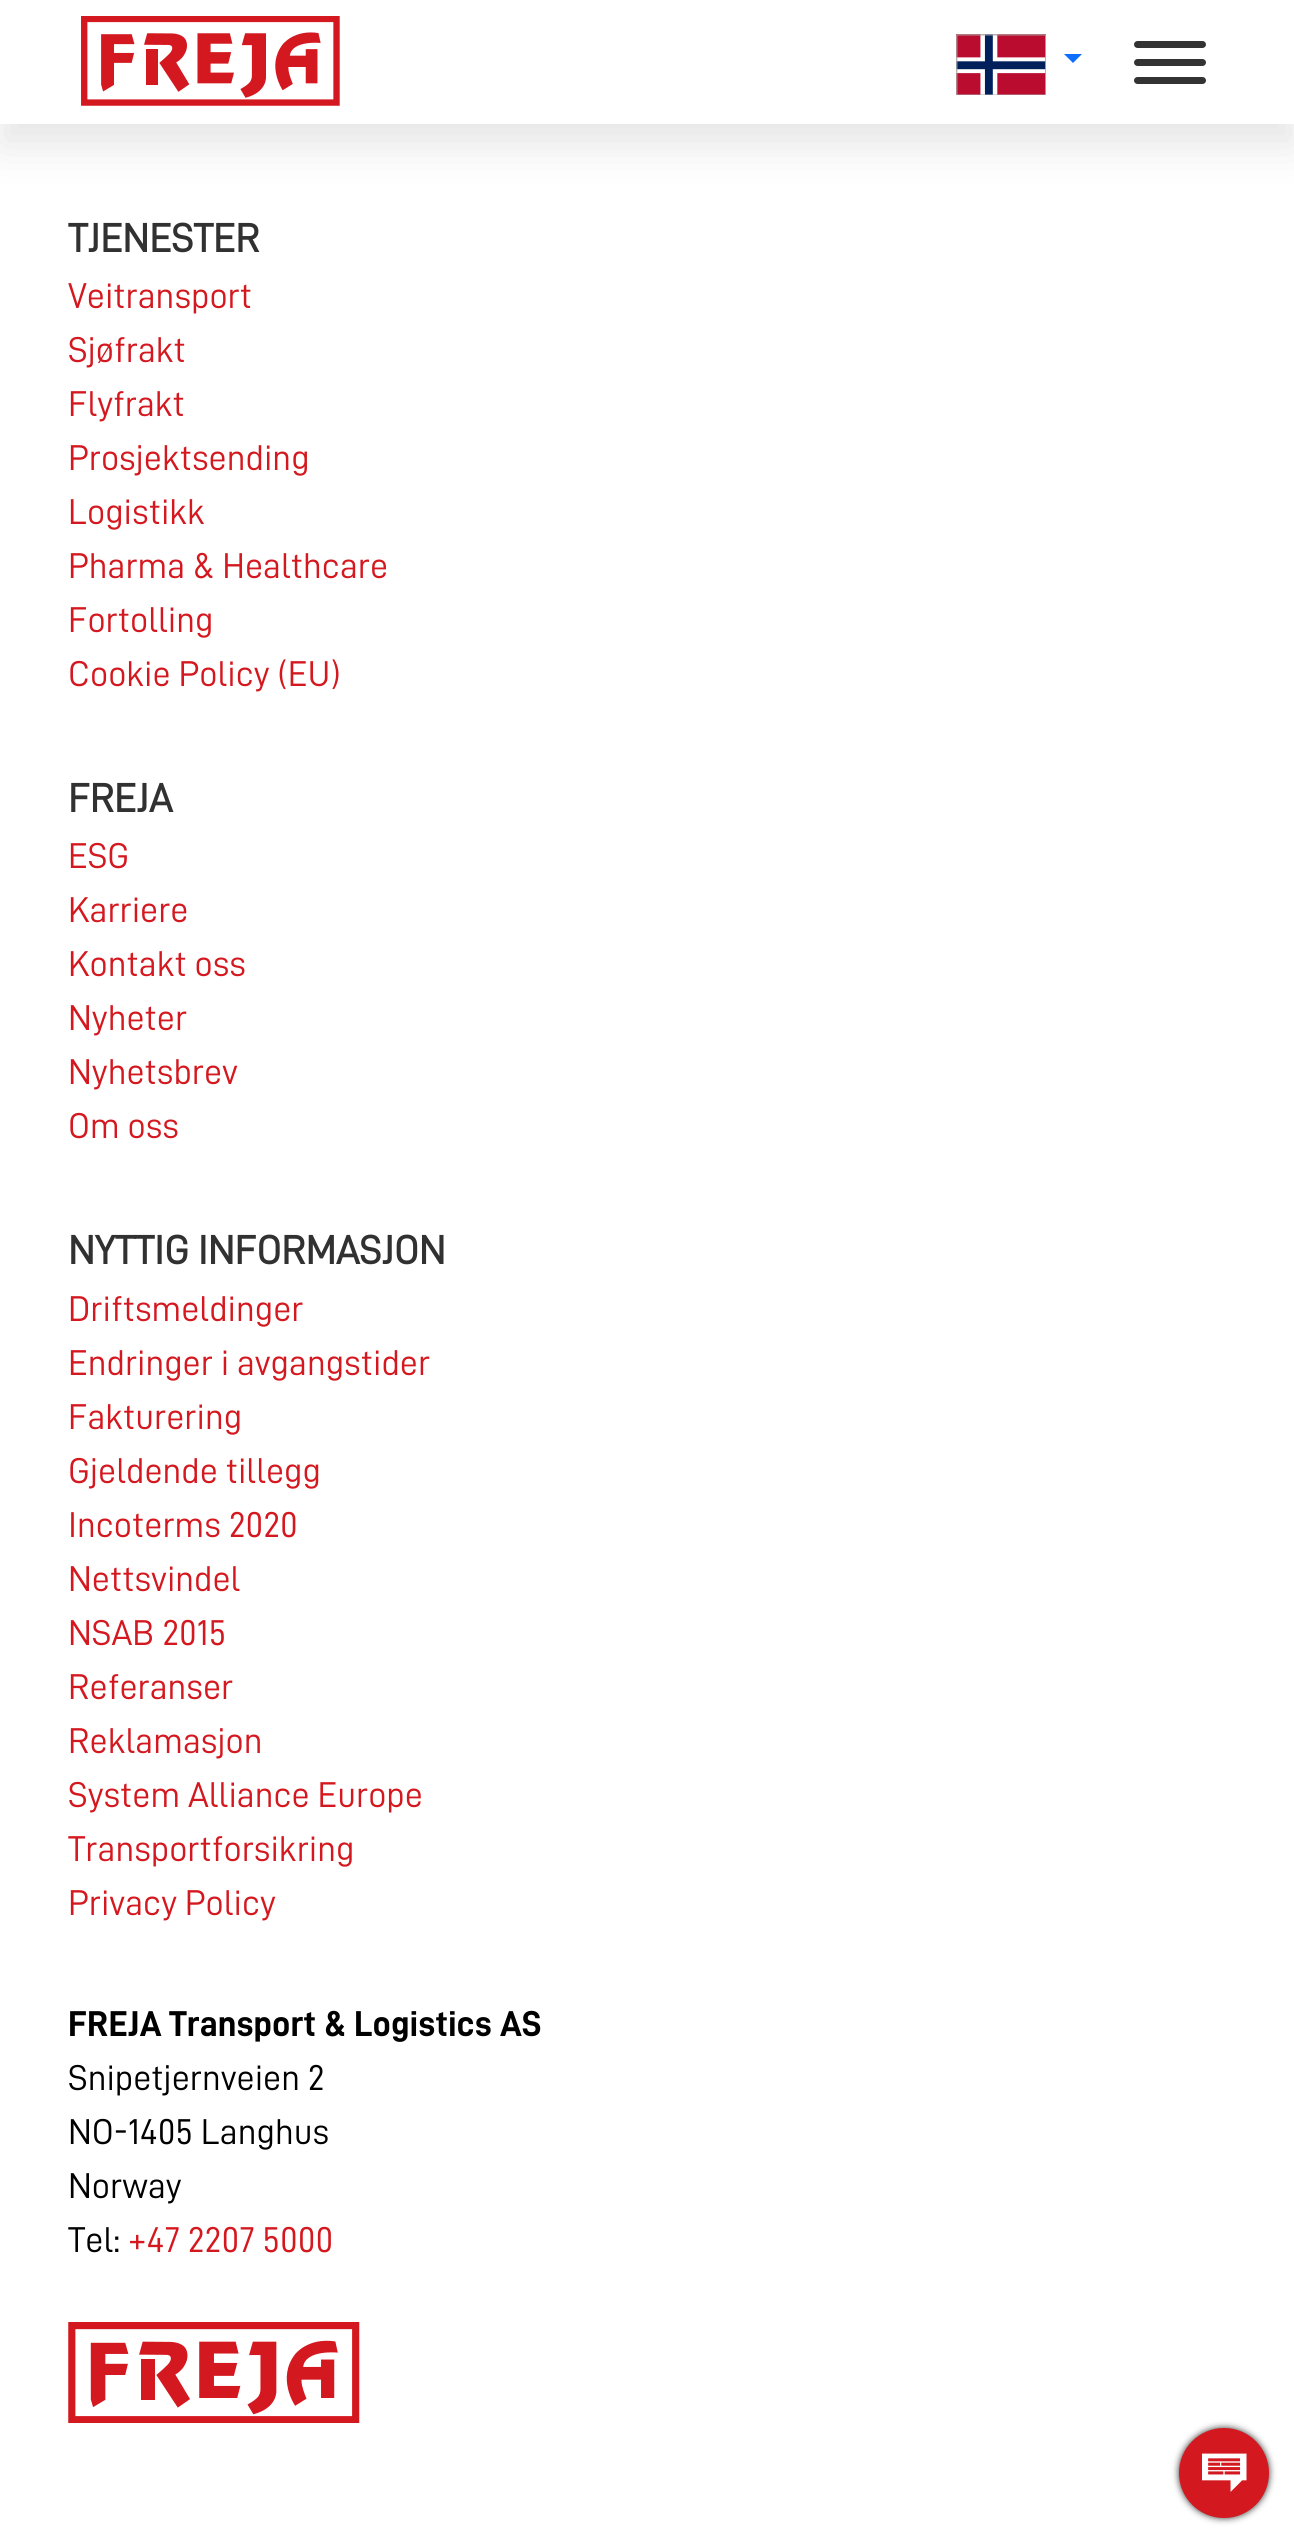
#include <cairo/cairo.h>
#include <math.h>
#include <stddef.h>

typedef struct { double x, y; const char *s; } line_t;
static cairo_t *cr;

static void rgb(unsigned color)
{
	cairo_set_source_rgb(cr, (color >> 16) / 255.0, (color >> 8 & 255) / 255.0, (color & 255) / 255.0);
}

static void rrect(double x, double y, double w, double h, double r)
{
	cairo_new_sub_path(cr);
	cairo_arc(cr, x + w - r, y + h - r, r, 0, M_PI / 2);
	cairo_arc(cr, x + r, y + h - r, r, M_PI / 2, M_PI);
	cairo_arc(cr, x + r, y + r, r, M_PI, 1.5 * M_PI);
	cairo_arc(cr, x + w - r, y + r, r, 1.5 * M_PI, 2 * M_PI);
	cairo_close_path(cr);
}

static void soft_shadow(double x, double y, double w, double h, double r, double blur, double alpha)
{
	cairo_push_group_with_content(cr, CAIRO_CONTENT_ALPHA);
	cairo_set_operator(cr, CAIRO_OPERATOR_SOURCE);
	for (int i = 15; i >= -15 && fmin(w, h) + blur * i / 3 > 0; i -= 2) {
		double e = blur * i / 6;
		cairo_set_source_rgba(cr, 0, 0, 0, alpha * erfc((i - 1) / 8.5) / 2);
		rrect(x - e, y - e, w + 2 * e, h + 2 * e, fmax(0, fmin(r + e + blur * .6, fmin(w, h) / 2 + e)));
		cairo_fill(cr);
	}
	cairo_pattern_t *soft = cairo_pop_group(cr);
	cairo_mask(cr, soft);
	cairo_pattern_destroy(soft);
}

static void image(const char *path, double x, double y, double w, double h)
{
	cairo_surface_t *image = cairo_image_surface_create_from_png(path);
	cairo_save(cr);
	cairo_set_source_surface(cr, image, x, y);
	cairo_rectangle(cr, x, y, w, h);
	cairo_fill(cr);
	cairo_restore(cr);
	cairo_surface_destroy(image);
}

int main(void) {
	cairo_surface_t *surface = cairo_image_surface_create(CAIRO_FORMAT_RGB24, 1294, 2544);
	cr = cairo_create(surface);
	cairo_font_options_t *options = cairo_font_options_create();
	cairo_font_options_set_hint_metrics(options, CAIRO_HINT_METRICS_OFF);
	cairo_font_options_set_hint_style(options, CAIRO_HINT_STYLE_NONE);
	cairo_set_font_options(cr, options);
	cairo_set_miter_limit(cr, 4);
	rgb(0xffffff);
	cairo_paint(cr);
	rgb(0x000000);
	soft_shadow(0, 23, 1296, 123, 0, 21.5, 0.1);
	rgb(0xffffff);
	cairo_rectangle(cr, 0, 0, 1294, 124);
	cairo_fill(cr);
	image("img/1.png", 81, 16, 259, 90);
	image("img/2.png", 956, 34, 90, 61);
	rgb(0x0d6efd);
	cairo_new_path(cr);
	cairo_move_to(cr, 1064, 54);
	cairo_line_to(cr, 1082, 54);
	cairo_line_to(cr, 1073, 63);
	cairo_close_path(cr);
	cairo_fill(cr);
	rgb(0x333333);
	rrect(1134, 41, 72, 7, 3.5);
	cairo_fill(cr);
	rrect(1134, 59, 72, 7, 3.5);
	cairo_fill(cr);
	rrect(1134, 77, 72, 7, 3.5);
	cairo_fill(cr);
	image("img/3.png", 68, 2322, 292, 101);
	rgb(0x313131);
	soft_shadow(1179, 2428, 90, 90, 45, 3.5, 1);
	rgb(0xd4181f);
	cairo_arc(cr, 1224, 2473, 45, 0, 2 * M_PI);
	cairo_fill(cr);
	image("img/4.png", 1202, 2453, 45, 39);
	cairo_select_font_face(cr, "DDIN", CAIRO_FONT_SLANT_NORMAL, CAIRO_FONT_WEIGHT_BOLD);
	cairo_set_font_size(cr, 40.5);
	rgb(0x313131);
	cairo_move_to(cr, 68, 252);
	cairo_show_text(cr, "TJENESTER");
	cairo_select_font_face(cr, "DDIN", CAIRO_FONT_SLANT_NORMAL, CAIRO_FONT_WEIGHT_NORMAL);
	cairo_set_font_size(cr, 36);
	rgb(0xd4181f);
	{
		static const line_t items[] = {
			{68, 308, "Veitransport"},
			{68, 362, "Sjøfrakt"},
			{68, 416, "Flyfrakt"},
			{68, 470, "Prosjektsending"},
			{68, 524, "Logistikk"},
			{68, 578, "Pharma & Healthcare"},
			{68, 632, "Fortolling"},
			{68, 686, "Cookie Policy (EU)"},
		};
		for (size_t i = 0; i < sizeof items / sizeof *items; i++) {
			cairo_move_to(cr, items[i].x, items[i].y);
			cairo_show_text(cr, items[i].s);
		}
	}
	cairo_select_font_face(cr, "DDIN", CAIRO_FONT_SLANT_NORMAL, CAIRO_FONT_WEIGHT_BOLD);
	cairo_set_font_size(cr, 40.5);
	rgb(0x313131);
	cairo_move_to(cr, 68, 812);
	cairo_show_text(cr, "FREJA");
	cairo_select_font_face(cr, "DDIN", CAIRO_FONT_SLANT_NORMAL, CAIRO_FONT_WEIGHT_NORMAL);
	cairo_set_font_size(cr, 36);
	rgb(0xd4181f);
	{
		static const line_t items[] = {
			{68, 868, "ESG"},
			{68, 922, "Karriere"},
			{68, 976, "Kontakt oss"},
			{68, 1030, "Nyheter"},
			{68, 1084, "Nyhetsbrev"},
			{68, 1138, "Om oss"},
		};
		for (size_t i = 0; i < sizeof items / sizeof *items; i++) {
			cairo_move_to(cr, items[i].x, items[i].y);
			cairo_show_text(cr, items[i].s);
		}
	}
	cairo_select_font_face(cr, "DDIN", CAIRO_FONT_SLANT_NORMAL, CAIRO_FONT_WEIGHT_BOLD);
	cairo_set_font_size(cr, 40.5);
	rgb(0x313131);
	cairo_move_to(cr, 68, 1264);
	cairo_show_text(cr, "NYTTIG INFORMASJON");
	cairo_select_font_face(cr, "DDIN", CAIRO_FONT_SLANT_NORMAL, CAIRO_FONT_WEIGHT_NORMAL);
	cairo_set_font_size(cr, 36);
	rgb(0xd4181f);
	{
		static const line_t items[] = {
			{68, 1321, "Driftsmeldinger"},
			{68, 1375, "Endringer i avgangstider"},
			{68, 1429, "Fakturering"},
			{68, 1483, "Gjeldende tillegg"},
			{68, 1537, "Incoterms 2020"},
			{68, 1591, "Nettsvindel"},
			{68, 1645, "NSAB 2015"},
			{68, 1699, "Referanser"},
			{68, 1753, "Reklamasjon"},
			{68, 1807, "System Alliance Europe"},
			{68, 1861, "Transportforsikring"},
			{68, 1915, "Privacy Policy"},
		};
		for (size_t i = 0; i < sizeof items / sizeof *items; i++) {
			cairo_move_to(cr, items[i].x, items[i].y);
			cairo_show_text(cr, items[i].s);
		}
	}
	cairo_select_font_face(cr, "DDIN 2", CAIRO_FONT_SLANT_NORMAL, CAIRO_FONT_WEIGHT_BOLD);
	rgb(0x000000);
	cairo_move_to(cr, 68, 2036);
	cairo_show_text(cr, "FREJA");
	cairo_move_to(cr, 169, 2036);
	cairo_show_text(cr, "Transport & Logistics AS");
	cairo_select_font_face(cr, "DDIN", CAIRO_FONT_SLANT_NORMAL, CAIRO_FONT_WEIGHT_NORMAL);
	{
		static const line_t items[] = {
			{68, 2090, "Snipetjernveien 2"},
			{68, 2144, "NO-1405 Langhus"},
			{68, 2198, "Norway"},
			{68, 2252, "Tel:"},
		};
		for (size_t i = 0; i < sizeof items / sizeof *items; i++) {
			cairo_move_to(cr, items[i].x, items[i].y);
			cairo_show_text(cr, items[i].s);
		}
	}
	rgb(0xd4181f);
	cairo_move_to(cr, 128, 2252);
	cairo_show_text(cr, "+47 2207 5000");
	cairo_surface_write_to_png(surface, "page.png");
	cairo_font_options_destroy(options);
	cairo_destroy(cr);
	cairo_surface_destroy(surface);
	return 0;
}
